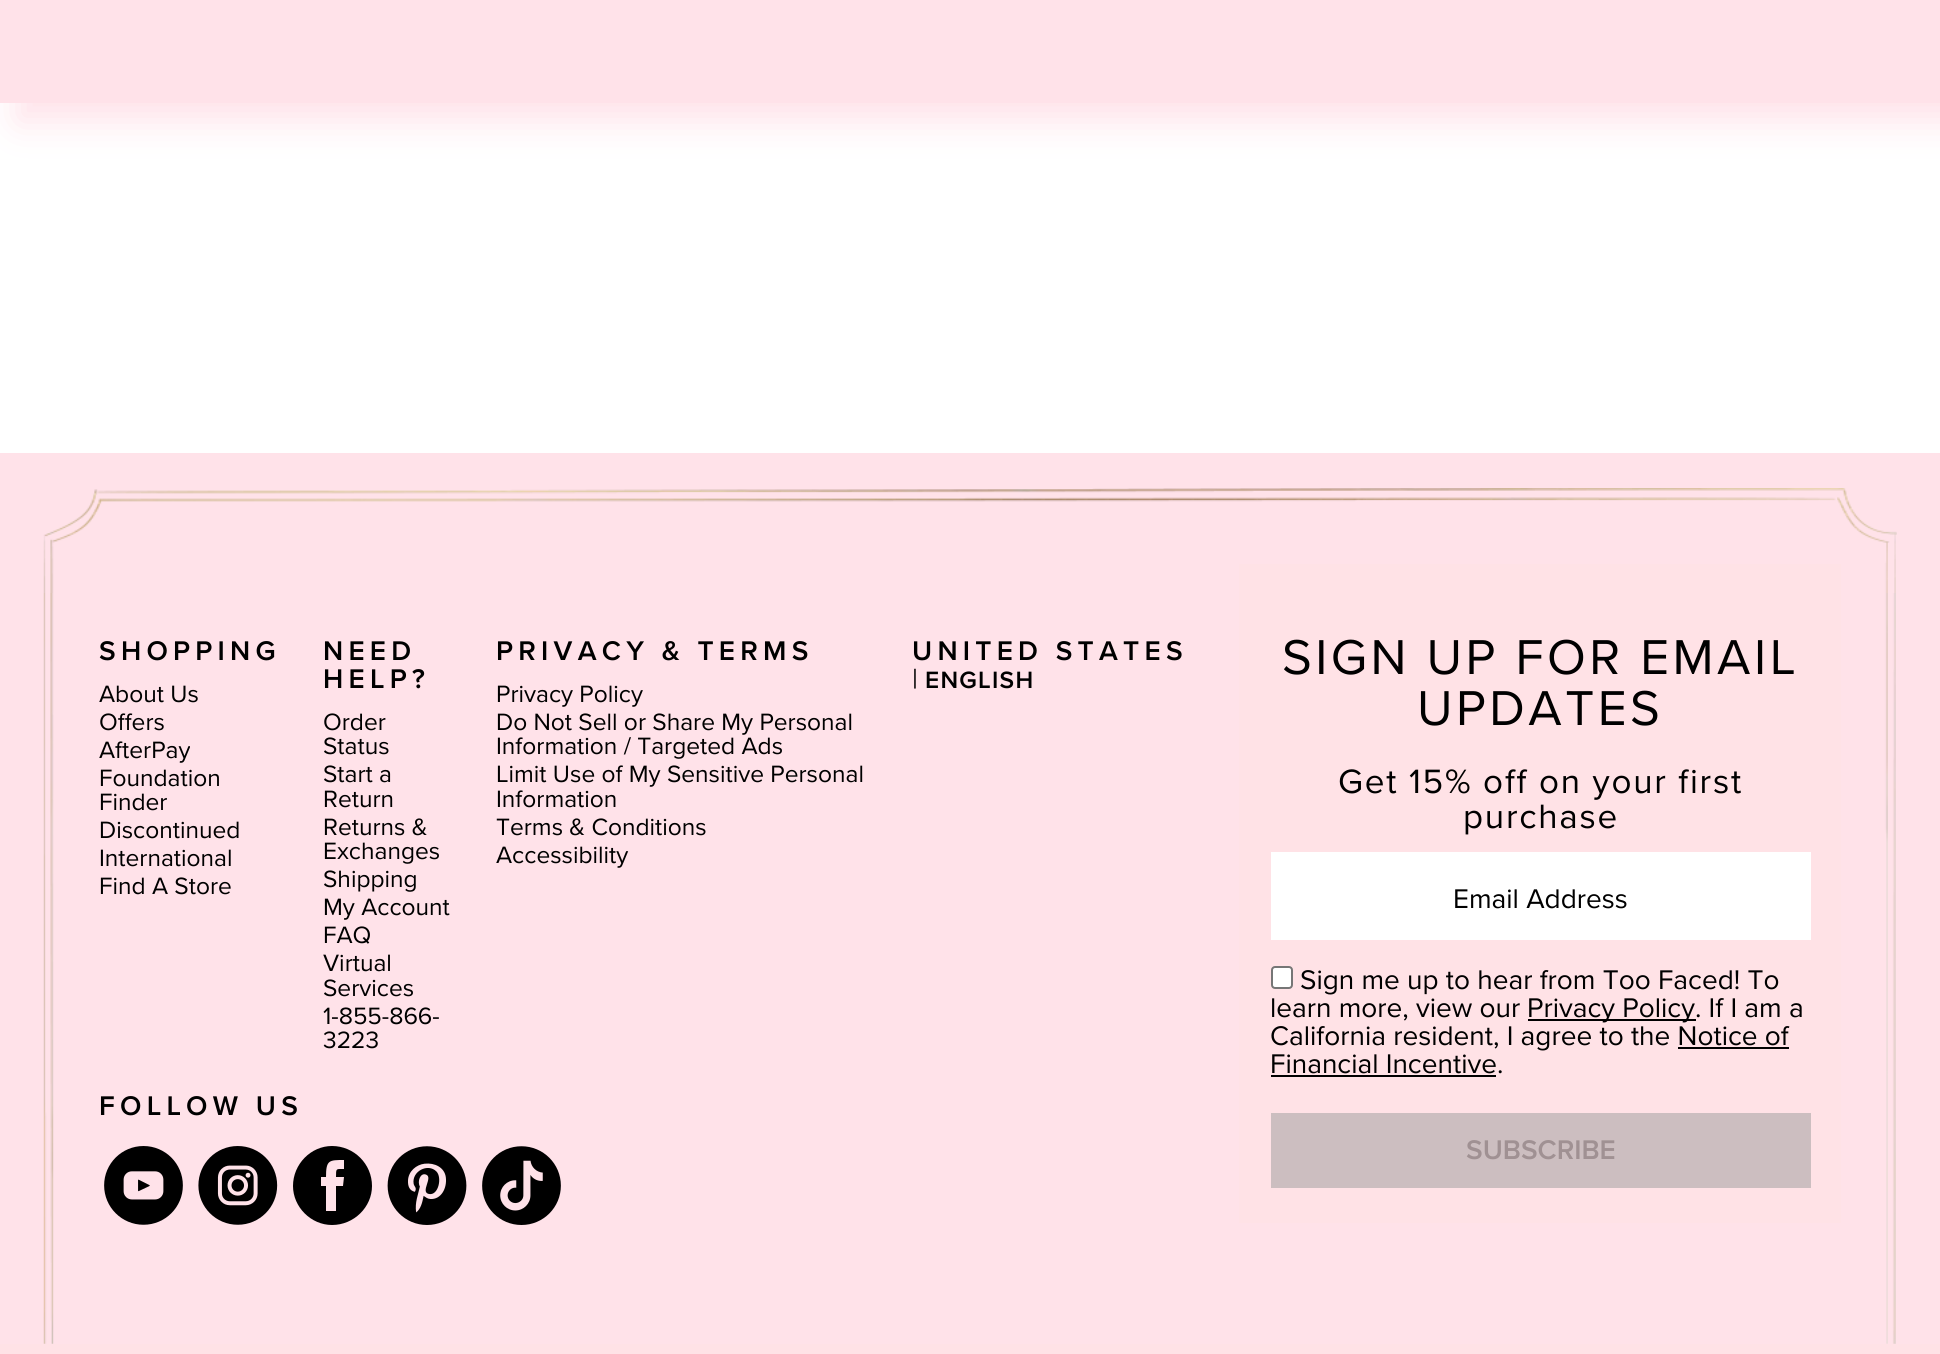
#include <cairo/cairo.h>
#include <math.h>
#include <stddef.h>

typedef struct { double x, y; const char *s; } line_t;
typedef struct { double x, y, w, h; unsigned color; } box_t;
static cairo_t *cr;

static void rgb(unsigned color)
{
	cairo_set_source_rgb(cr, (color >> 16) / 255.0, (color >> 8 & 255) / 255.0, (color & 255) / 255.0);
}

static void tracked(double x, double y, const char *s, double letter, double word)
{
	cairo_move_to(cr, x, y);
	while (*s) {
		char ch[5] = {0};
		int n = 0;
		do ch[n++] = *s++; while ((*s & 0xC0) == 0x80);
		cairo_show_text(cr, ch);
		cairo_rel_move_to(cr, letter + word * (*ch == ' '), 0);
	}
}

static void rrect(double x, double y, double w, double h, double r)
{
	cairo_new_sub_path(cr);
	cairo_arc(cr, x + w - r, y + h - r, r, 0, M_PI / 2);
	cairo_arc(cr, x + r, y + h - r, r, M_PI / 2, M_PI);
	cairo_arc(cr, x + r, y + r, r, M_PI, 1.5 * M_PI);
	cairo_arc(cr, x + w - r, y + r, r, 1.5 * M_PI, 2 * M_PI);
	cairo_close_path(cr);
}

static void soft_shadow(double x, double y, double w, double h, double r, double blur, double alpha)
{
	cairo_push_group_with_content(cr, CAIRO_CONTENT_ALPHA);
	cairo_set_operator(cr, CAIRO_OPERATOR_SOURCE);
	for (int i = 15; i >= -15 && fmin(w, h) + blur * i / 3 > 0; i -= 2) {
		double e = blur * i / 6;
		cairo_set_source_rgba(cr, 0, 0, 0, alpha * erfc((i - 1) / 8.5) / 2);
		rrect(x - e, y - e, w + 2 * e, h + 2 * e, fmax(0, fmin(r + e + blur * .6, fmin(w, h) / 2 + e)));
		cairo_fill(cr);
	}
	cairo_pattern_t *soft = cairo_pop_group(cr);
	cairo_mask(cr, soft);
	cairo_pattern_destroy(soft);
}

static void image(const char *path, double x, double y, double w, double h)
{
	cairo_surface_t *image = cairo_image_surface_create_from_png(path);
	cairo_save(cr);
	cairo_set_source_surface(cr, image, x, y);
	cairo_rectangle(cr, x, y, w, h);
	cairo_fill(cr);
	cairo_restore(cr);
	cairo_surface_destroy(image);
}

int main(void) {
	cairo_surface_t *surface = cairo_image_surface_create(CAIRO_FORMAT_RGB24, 1940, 1354);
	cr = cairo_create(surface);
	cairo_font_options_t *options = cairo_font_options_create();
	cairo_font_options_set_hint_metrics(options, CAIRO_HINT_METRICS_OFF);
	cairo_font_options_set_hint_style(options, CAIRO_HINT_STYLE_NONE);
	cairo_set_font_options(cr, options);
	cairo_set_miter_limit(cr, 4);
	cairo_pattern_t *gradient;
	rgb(0xffffff);
	cairo_paint(cr);
	rgb(0xffe2e9);
	soft_shadow(18, -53, 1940, 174, 0, 17.5, 1);
	rgb(0xffe2e9);
	cairo_rectangle(cr, 0, 0, 1940, 103);
	cairo_fill(cr);
	cairo_rectangle(cr, 0, 453, 1940, 891);
	cairo_fill(cr);
	image("img/1.png", 43, 593, 1853, 751);
	image("img/2.png", 43, 488, 1854, 105);
	rgb(0xffe2e6);
	cairo_rectangle(cr, 1239, 564, 602, 659);
	cairo_fill(cr);
	rgb(0xffffff);
	cairo_rectangle(cr, 1271, 852, 540, 88);
	cairo_fill(cr);
	rrect(1272, 967, 20, 21, 3);
	cairo_fill_preserve(cr);
	rgb(0x767676);
	cairo_stroke(cr);
	{
		static const box_t items[] = {
			{1528, 1019, 168, 2, 0x000000},
			{1678, 1047, 111, 2, 0x000000},
			{1271, 1075, 225, 2, 0x000000},
			{1271, 1113, 540, 75, 0xccbec0},
		};
		for (size_t i = 0; i < sizeof items / sizeof *items; i++) {
			rgb(items[i].color);
			cairo_rectangle(cr, items[i].x, items[i].y, items[i].w, items[i].h);
			cairo_fill(cr);
		}
	}
	image("img/3.png", 104, 1146, 79, 79);
	image("img/4.png", 198, 1146, 80, 79);
	rgb(0x000000);
	cairo_new_path(cr);
	cairo_move_to(cr, 332, 1146);
	cairo_curve_to(cr, 311, 1146, 293, 1164, 293, 1186);
	cairo_curve_to(cr, 293, 1207, 311, 1225, 332, 1225);
	cairo_curve_to(cr, 354, 1225, 372, 1207, 372, 1186);
	cairo_curve_to(cr, 372, 1164, 354, 1146, 332, 1146);
	cairo_close_path(cr);
	cairo_move_to(cr, 344, 1169);
	cairo_curve_to(cr, 336, 1169, 336, 1168, 336, 1177);
	cairo_line_to(cr, 344, 1177);
	cairo_line_to(cr, 343, 1186);
	cairo_line_to(cr, 336, 1186);
	cairo_line_to(cr, 336, 1211);
	cairo_line_to(cr, 326, 1211);
	cairo_line_to(cr, 326, 1186);
	cairo_line_to(cr, 321, 1186);
	cairo_line_to(cr, 321, 1177);
	cairo_line_to(cr, 326, 1177);
	cairo_curve_to(cr, 326, 1160, 329, 1160, 344, 1160);
	cairo_close_path(cr);
	cairo_fill(cr);
	image("img/5.png", 387, 1146, 80, 79);
	image("img/6.png", 482, 1146, 79, 79);
	gradient = cairo_pattern_create_linear(970, 1309, 970, 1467);
	cairo_pattern_add_color_stop_rgba(gradient, 0, 0, 0, 0, 0);
	cairo_pattern_add_color_stop_rgba(gradient, 0.22, 1, 0.886, 0.902, 0);
	cairo_pattern_add_color_stop_rgba(gradient, 0.22, 1, 0.886, 0.902, 1);
	cairo_set_source(cr, gradient);
	cairo_pattern_destroy(gradient);
	cairo_rectangle(cr, 0, 1344, 1940, 10);
	cairo_fill(cr);
	cairo_select_font_face(cr, "Proxima Nova SemiBold", CAIRO_FONT_SLANT_NORMAL, CAIRO_FONT_WEIGHT_NORMAL);
	cairo_set_font_size(cr, 28);
	rgb(0x000000);
	tracked(99, 660, "SHOPPING", 5.25, 0);
	cairo_select_font_face(cr, "Proxima Nova", CAIRO_FONT_SLANT_NORMAL, CAIRO_FONT_WEIGHT_NORMAL);
	cairo_set_font_size(cr, 24.5);
	{
		static const line_t items[] = {
			{99, 702, "About Us"},
			{99, 730, "Offers"},
			{99, 758, "AfterPay"},
			{99, 786, "Foundation"},
			{99, 810, "Finder"},
			{99, 838, "Discontinued"},
			{99, 866, "International"},
			{99, 894, "Find A Store"},
		};
		for (size_t i = 0; i < sizeof items / sizeof *items; i++) {
			cairo_move_to(cr, items[i].x, items[i].y);
			cairo_show_text(cr, items[i].s);
		}
	}
	cairo_select_font_face(cr, "Proxima Nova SemiBold", CAIRO_FONT_SLANT_NORMAL, CAIRO_FONT_WEIGHT_NORMAL);
	cairo_set_font_size(cr, 28);
	tracked(323, 660, "NEED", 5.25, 0);
	tracked(323, 688, "HELP?", 5.25, 0);
	cairo_select_font_face(cr, "Proxima Nova", CAIRO_FONT_SLANT_NORMAL, CAIRO_FONT_WEIGHT_NORMAL);
	cairo_set_font_size(cr, 24.5);
	{
		static const line_t items[] = {
			{323, 730, "Order"},
			{323, 754, "Status"},
			{323, 782, "Start a"},
			{323, 807, "Return"},
			{323, 835, "Returns &"},
			{323, 859, "Exchanges"},
			{323, 887, "Shipping"},
			{323, 915, "My Account"},
			{323, 943, "FAQ"},
			{323, 971, "Virtual"},
			{323, 996, "Services"},
			{323, 1024, "1-855-866-"},
			{323, 1048, "3223"},
		};
		for (size_t i = 0; i < sizeof items / sizeof *items; i++) {
			cairo_move_to(cr, items[i].x, items[i].y);
			cairo_show_text(cr, items[i].s);
		}
	}
	cairo_select_font_face(cr, "Proxima Nova SemiBold", CAIRO_FONT_SLANT_NORMAL, CAIRO_FONT_WEIGHT_NORMAL);
	cairo_set_font_size(cr, 28);
	tracked(496, 660, "PRIVACY & TERMS", 5.25, 0);
	cairo_select_font_face(cr, "Proxima Nova", CAIRO_FONT_SLANT_NORMAL, CAIRO_FONT_WEIGHT_NORMAL);
	cairo_set_font_size(cr, 24.5);
	{
		static const line_t items[] = {
			{496, 702, "Privacy Policy"},
			{496, 730, "Do Not Sell or Share My Personal"},
			{496, 754, "Information / Targeted Ads"},
			{496, 782, "Limit Use of My Sensitive Personal"},
			{496, 807, "Information"},
			{496, 835, "Terms & Conditions"},
			{496, 863, "Accessibility"},
		};
		for (size_t i = 0; i < sizeof items / sizeof *items; i++) {
			cairo_move_to(cr, items[i].x, items[i].y);
			cairo_show_text(cr, items[i].s);
		}
	}
	cairo_select_font_face(cr, "Proxima Nova SemiBold", CAIRO_FONT_SLANT_NORMAL, CAIRO_FONT_WEIGHT_NORMAL);
	cairo_set_font_size(cr, 28);
	tracked(912, 660, "UNITED STATES", 5.25, 0);
	cairo_select_font_face(cr, "Proxima Nova", CAIRO_FONT_SLANT_NORMAL, CAIRO_FONT_WEIGHT_NORMAL);
	cairo_move_to(cr, 912, 688);
	cairo_show_text(cr, "|");
	cairo_select_font_face(cr, "Proxima Nova SemiBold", CAIRO_FONT_SLANT_NORMAL, CAIRO_FONT_WEIGHT_NORMAL);
	cairo_set_font_size(cr, 24.5);
	tracked(925, 688, "ENGLISH", 1.25, 0);
	cairo_select_font_face(cr, "Proxima Nova", CAIRO_FONT_SLANT_NORMAL, CAIRO_FONT_WEIGHT_NORMAL);
	cairo_set_font_size(cr, 50.75);
	tracked(1282, 674, "SIGN UP FOR EMAIL", 3.5, 0);
	tracked(1417, 725, "UPDATES", 3.5, 0);
	cairo_set_font_size(cr, 35);
	tracked(1338, 793, "Get 15% off on your first", 1.75, 0);
	tracked(1463, 828, "purchase", 1.75, 0);
	cairo_set_font_size(cr, 28);
	{
		static const line_t items[] = {
			{1453, 908, "Email Address"},
			{1300, 989, "Sign me up to hear from Too Faced! To"},
			{1270, 1017, "learn more, view our"},
			{1527, 1017, "Privacy Policy. If I am a"},
			{1270, 1045, "California resident, I agree to the Notice of"},
			{1270, 1073, "Financial Incentive."},
		};
		for (size_t i = 0; i < sizeof items / sizeof *items; i++) {
			cairo_move_to(cr, items[i].x, items[i].y);
			cairo_show_text(cr, items[i].s);
		}
	}
	cairo_select_font_face(cr, "Proxima Nova SemiBold", CAIRO_FONT_SLANT_NORMAL, CAIRO_FONT_WEIGHT_NORMAL);
	rgb(0xa09193);
	cairo_move_to(cr, 1466, 1159);
	cairo_show_text(cr, "SUBSCRIBE");
	rgb(0x000000);
	tracked(99, 1115, "FOLLOW US", 5.25, 0);
	cairo_surface_write_to_png(surface, "page.png");
	cairo_font_options_destroy(options);
	cairo_destroy(cr);
	cairo_surface_destroy(surface);
	return 0;
}
